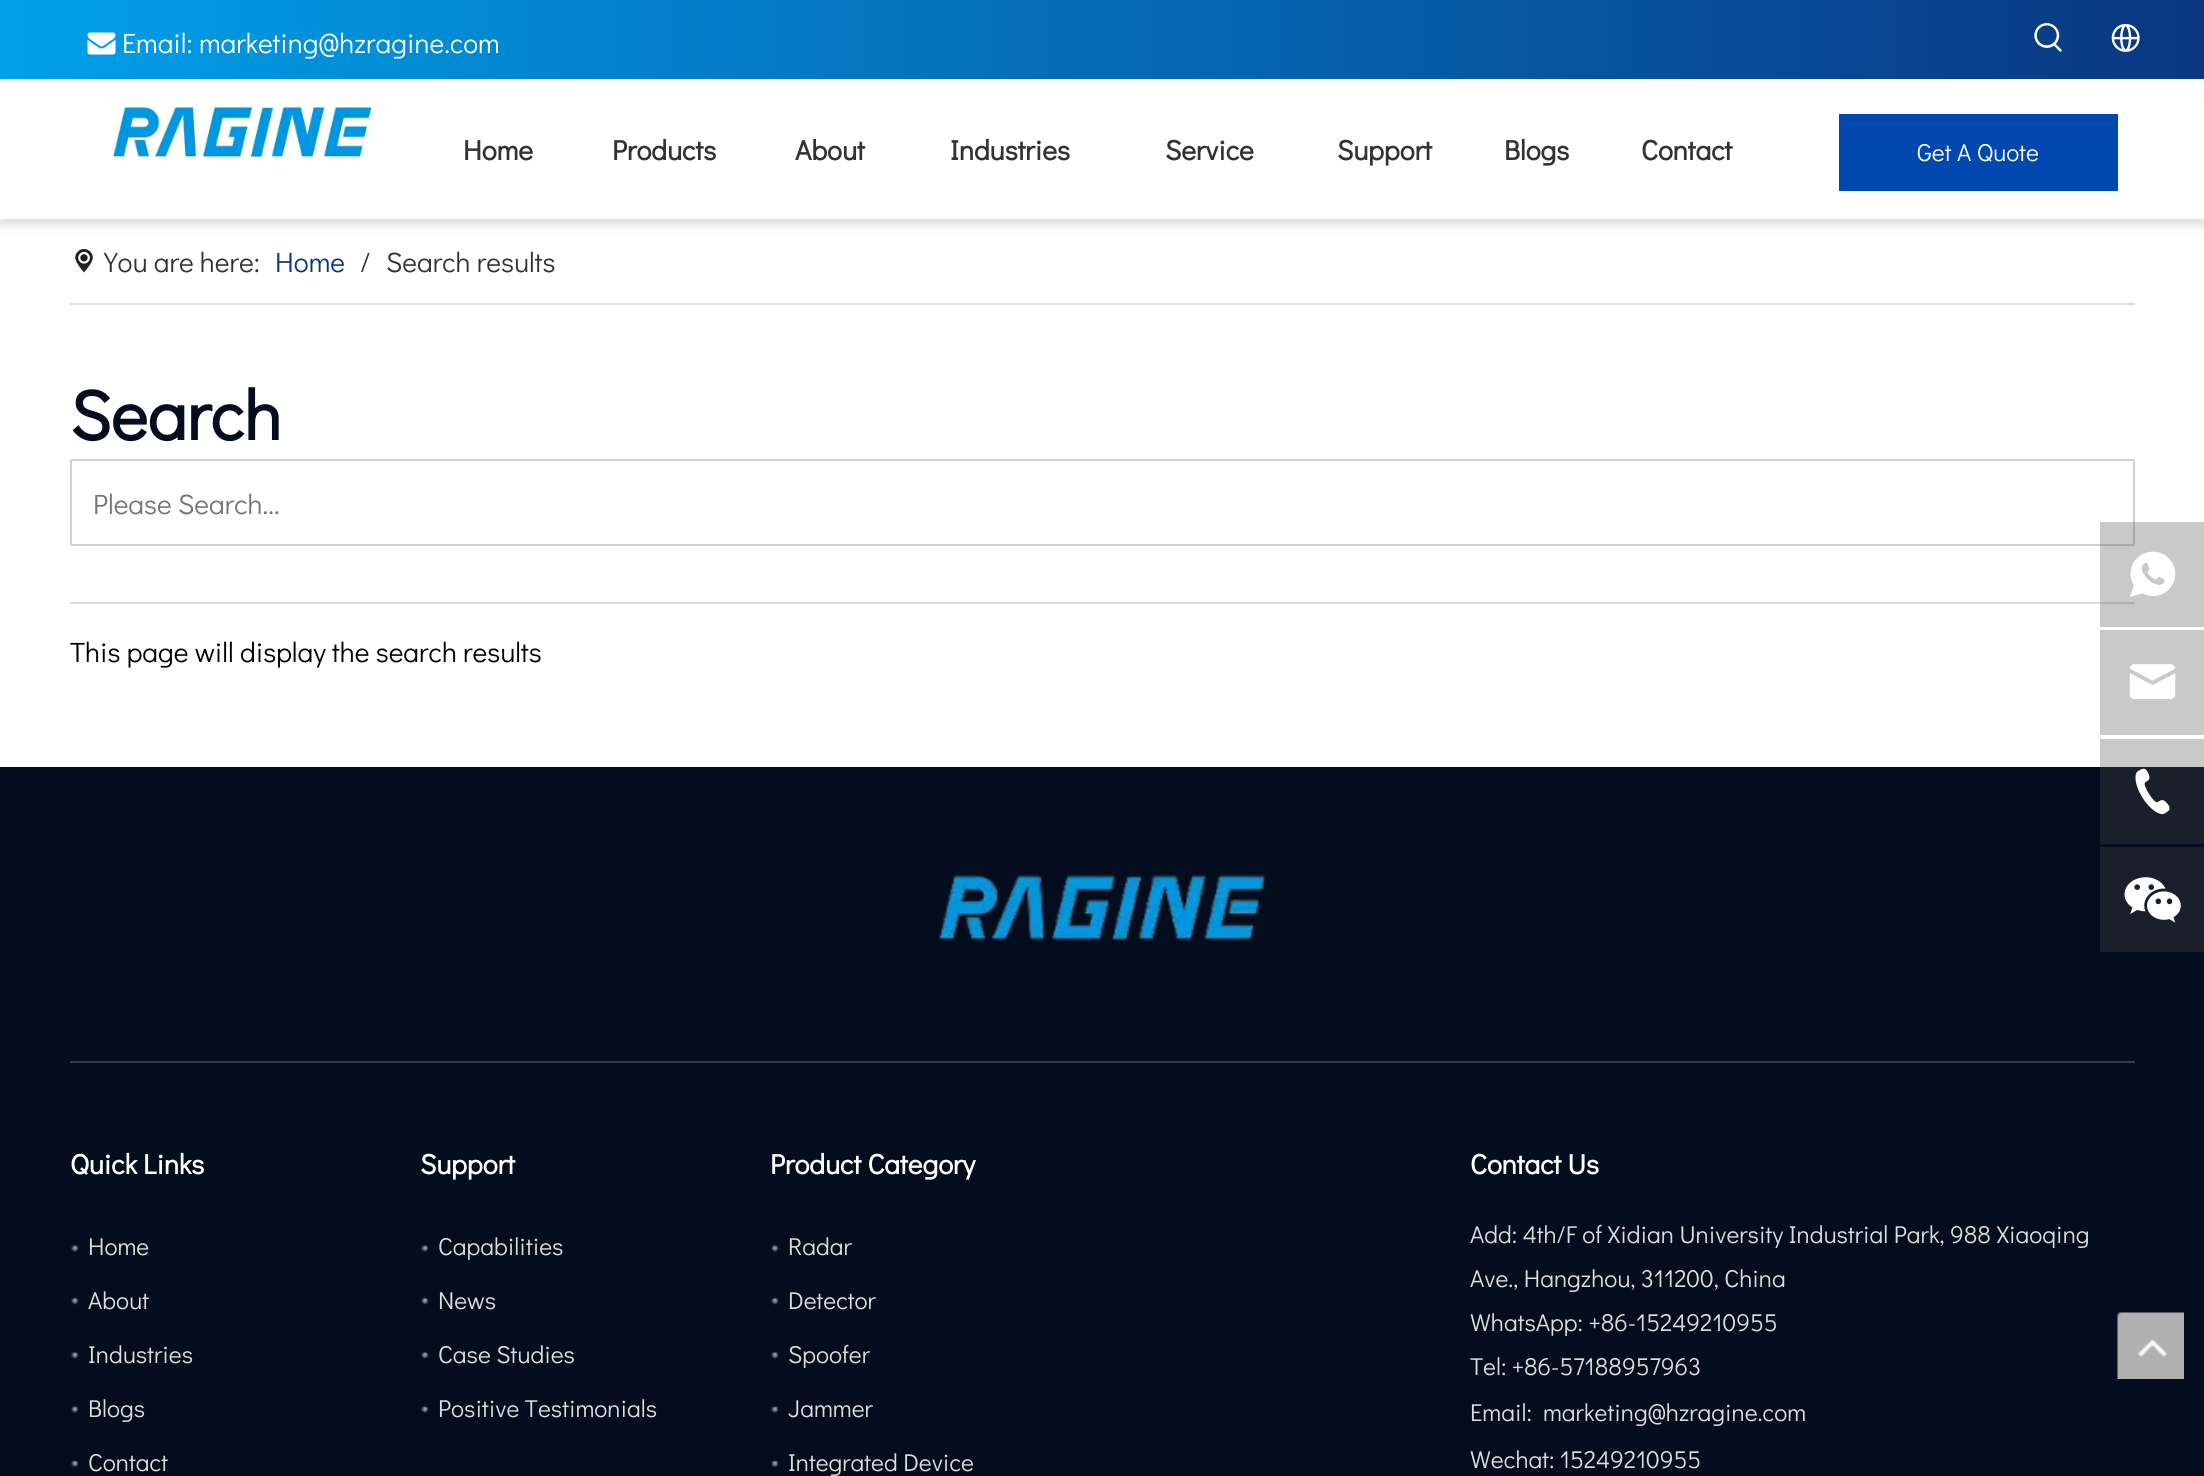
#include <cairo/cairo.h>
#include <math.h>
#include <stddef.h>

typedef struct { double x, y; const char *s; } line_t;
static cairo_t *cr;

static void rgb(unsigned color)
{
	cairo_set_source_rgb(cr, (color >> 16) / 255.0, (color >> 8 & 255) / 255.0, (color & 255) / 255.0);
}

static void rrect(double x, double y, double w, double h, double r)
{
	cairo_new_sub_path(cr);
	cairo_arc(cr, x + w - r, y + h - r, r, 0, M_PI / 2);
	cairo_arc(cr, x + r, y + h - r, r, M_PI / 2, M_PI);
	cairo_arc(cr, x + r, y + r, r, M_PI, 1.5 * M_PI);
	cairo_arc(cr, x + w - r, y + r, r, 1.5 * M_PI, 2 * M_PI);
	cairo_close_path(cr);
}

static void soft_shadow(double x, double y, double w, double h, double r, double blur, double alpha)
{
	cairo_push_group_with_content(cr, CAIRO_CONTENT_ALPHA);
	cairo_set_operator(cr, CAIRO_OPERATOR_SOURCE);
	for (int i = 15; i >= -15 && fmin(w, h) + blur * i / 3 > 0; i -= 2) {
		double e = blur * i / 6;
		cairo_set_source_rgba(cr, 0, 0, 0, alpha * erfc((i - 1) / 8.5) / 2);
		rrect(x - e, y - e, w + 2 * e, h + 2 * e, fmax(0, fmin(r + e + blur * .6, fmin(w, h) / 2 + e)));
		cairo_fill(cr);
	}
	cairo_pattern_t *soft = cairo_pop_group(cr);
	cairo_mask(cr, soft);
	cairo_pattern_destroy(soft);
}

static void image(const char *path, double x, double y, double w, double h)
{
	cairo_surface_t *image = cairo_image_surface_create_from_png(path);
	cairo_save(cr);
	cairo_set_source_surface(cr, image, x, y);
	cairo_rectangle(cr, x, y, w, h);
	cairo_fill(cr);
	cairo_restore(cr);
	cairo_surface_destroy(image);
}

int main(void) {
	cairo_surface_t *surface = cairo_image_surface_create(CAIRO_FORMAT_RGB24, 2204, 1476);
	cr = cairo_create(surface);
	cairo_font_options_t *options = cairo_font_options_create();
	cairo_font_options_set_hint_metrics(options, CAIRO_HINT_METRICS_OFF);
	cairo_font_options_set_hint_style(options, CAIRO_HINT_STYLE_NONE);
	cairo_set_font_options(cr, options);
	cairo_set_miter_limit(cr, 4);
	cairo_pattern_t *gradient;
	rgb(0xffffff);
	cairo_paint(cr);
	rgb(0xc9c9c9);
	cairo_rectangle(cr, 2100, 739, 104, 28);
	cairo_fill(cr);
	gradient = cairo_pattern_create_linear(0, 39, 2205, 39);
	cairo_pattern_add_color_stop_rgba(gradient, 0, 0, 0.627, 0.914, 1);
	cairo_pattern_add_color_stop_rgba(gradient, 1, 0.039, 0.212, 0.506, 1);
	cairo_set_source(cr, gradient);
	cairo_pattern_destroy(gradient);
	cairo_rectangle(cr, 0, 0, 2204, 79);
	cairo_fill(cr);
	image("img/1.png", 87, 32, 29, 23);
	image("img/2.png", 2034, 23, 28, 29);
	image("img/3.png", 2111, 23, 29, 29);
	rgb(0x5f5f5f);
	soft_shadow(0, 86, 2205, 140, 0, 4.5, 0.19);
	rgb(0xffffff);
	cairo_rectangle(cr, 0, 80, 2204, 139);
	cairo_fill(cr);
	image("img/4.png", 112, 106, 260, 53);
	rgb(0x0047af);
	cairo_rectangle(cr, 1839, 114, 279, 77);
	cairo_fill(cr);
	rgb(0xdddddd);
	cairo_rectangle(cr, 70, 303, 2065, 2);
	cairo_fill(cr);
	image("img/5.png", 75, 249, 18, 24);
	rrect(71, 460, 2063, 85, 1);
	rgb(0xd1d1d1);
	cairo_stroke(cr);
	rgb(0xdddddd);
	cairo_rectangle(cr, 70, 602, 2065, 2);
	cairo_fill(cr);
	cairo_set_source_rgba(cr, 0.29, 0.29, 0.29, 0.3);
	cairo_rectangle(cr, 2100, 522, 104, 105);
	cairo_fill(cr);
	image("img/6.png", 2130, 551, 46, 46);
	rgb(0xc9c9c9);
	cairo_rectangle(cr, 2100, 630, 104, 105);
	cairo_fill(cr);
	image("img/7.png", 2129, 664, 47, 35);
	rgb(0x040d1d);
	cairo_rectangle(cr, 0, 767, 2204, 709);
	cairo_fill(cr);
	rgb(0x191f2b);
	cairo_rectangle(cr, 2100, 767, 104, 77);
	cairo_fill(cr);
	image("img/8.png", 2135, 768, 35, 47);
	cairo_rectangle(cr, 2100, 847, 104, 105);
	cairo_fill(cr);
	image("img/9.png", 2124, 877, 57, 46);
	image("img/10.png", 939, 874, 327, 67);
	rgb(0x363d4a);
	cairo_rectangle(cr, 70, 1061, 2065, 2);
	cairo_fill(cr);
	image("img/11.png", 71, 1244, 8, 8);
	image("img/12.png", 71, 1296, 8, 9);
	image("img/13.png", 71, 1351, 8, 8);
	image("img/11.png", 71, 1405, 8, 8);
	image("img/14.png", 71, 1459, 8, 8);
	image("img/15.png", 421, 1244, 8, 8);
	image("img/16.png", 421, 1296, 8, 9);
	image("img/17.png", 421, 1351, 8, 8);
	image("img/15.png", 421, 1405, 8, 8);
	image("img/15.png", 771, 1244, 8, 8);
	image("img/16.png", 771, 1296, 8, 9);
	image("img/17.png", 771, 1351, 8, 8);
	image("img/15.png", 771, 1405, 8, 8);
	image("img/18.png", 771, 1459, 8, 8);
	image("img/19.png", 2117, 1312, 67, 67);
	cairo_select_font_face(cr, "Didact Gothic", CAIRO_FONT_SLANT_NORMAL, CAIRO_FONT_WEIGHT_NORMAL);
	cairo_set_font_size(cr, 28);
	rgb(0xffffff);
	cairo_move_to(cr, 122, 53);
	cairo_show_text(cr, "Email: marketing@hzragine.com");
	cairo_select_font_face(cr, "Didact Gothic", CAIRO_FONT_SLANT_NORMAL, CAIRO_FONT_WEIGHT_BOLD);
	rgb(0x333333);
	{
		static const line_t items[] = {
			{463, 160, "Home"},
			{612, 160, "Products"},
			{795, 160, "About"},
			{950, 160, "Industries"},
			{1165, 160, "Service"},
			{1337, 160, "Support"},
			{1504, 160, "Blogs"},
			{1641, 160, "Contact"},
		};
		for (size_t i = 0; i < sizeof items / sizeof *items; i++) {
			cairo_move_to(cr, items[i].x, items[i].y);
			cairo_show_text(cr, items[i].s);
		}
	}
	cairo_select_font_face(cr, "Didact Gothic", CAIRO_FONT_SLANT_NORMAL, CAIRO_FONT_WEIGHT_NORMAL);
	cairo_set_font_size(cr, 24.5);
	rgb(0xffffff);
	cairo_move_to(cr, 1917, 161);
	cairo_show_text(cr, "Get A Quote");
	cairo_set_font_size(cr, 28);
	rgb(0x333333);
	cairo_move_to(cr, 104, 272);
	cairo_show_text(cr, "You are here:");
	rgb(0x0a3681);
	cairo_move_to(cr, 275, 272);
	cairo_show_text(cr, "Home");
	rgb(0x333333);
	cairo_move_to(cr, 360, 272);
	cairo_show_text(cr, "/");
	cairo_move_to(cr, 386, 272);
	cairo_show_text(cr, "Search results");
	cairo_select_font_face(cr, "Didact Gothic", CAIRO_FONT_SLANT_NORMAL, CAIRO_FONT_WEIGHT_BOLD);
	cairo_set_font_size(cr, 70);
	rgb(0x040d1d);
	cairo_move_to(cr, 70, 440);
	cairo_show_text(cr, "Search");
	cairo_select_font_face(cr, "Didact Gothic", CAIRO_FONT_SLANT_NORMAL, CAIRO_FONT_WEIGHT_NORMAL);
	cairo_set_font_size(cr, 28);
	rgb(0x757575);
	cairo_move_to(cr, 93, 514);
	cairo_show_text(cr, "Please Search...");
	rgb(0x000000);
	cairo_move_to(cr, 70, 662);
	cairo_show_text(cr, "This page will display the search results");
	cairo_select_font_face(cr, "Didact Gothic", CAIRO_FONT_SLANT_NORMAL, CAIRO_FONT_WEIGHT_BOLD);
	rgb(0xffffff);
	cairo_move_to(cr, 70, 1174);
	cairo_show_text(cr, "Quick Links");
	cairo_select_font_face(cr, "Didact Gothic", CAIRO_FONT_SLANT_NORMAL, CAIRO_FONT_WEIGHT_NORMAL);
	cairo_set_font_size(cr, 24.5);
	rgb(0xdddddd);
	{
		static const line_t items[] = {
			{88, 1255, "Home"},
			{88, 1309, "About"},
			{88, 1363, "Industries"},
			{88, 1417, "Blogs"},
			{88, 1471, "Contact"},
		};
		for (size_t i = 0; i < sizeof items / sizeof *items; i++) {
			cairo_move_to(cr, items[i].x, items[i].y);
			cairo_show_text(cr, items[i].s);
		}
	}
	cairo_select_font_face(cr, "Didact Gothic", CAIRO_FONT_SLANT_NORMAL, CAIRO_FONT_WEIGHT_BOLD);
	cairo_set_font_size(cr, 28);
	rgb(0xffffff);
	cairo_move_to(cr, 420, 1174);
	cairo_show_text(cr, "Support");
	cairo_select_font_face(cr, "Didact Gothic", CAIRO_FONT_SLANT_NORMAL, CAIRO_FONT_WEIGHT_NORMAL);
	cairo_set_font_size(cr, 24.5);
	rgb(0xdddddd);
	{
		static const line_t items[] = {
			{438, 1255, "Capabilities"},
			{438, 1309, "News"},
			{438, 1363, "Case Studies"},
			{438, 1417, "Positive Testimonials"},
		};
		for (size_t i = 0; i < sizeof items / sizeof *items; i++) {
			cairo_move_to(cr, items[i].x, items[i].y);
			cairo_show_text(cr, items[i].s);
		}
	}
	cairo_select_font_face(cr, "Didact Gothic", CAIRO_FONT_SLANT_NORMAL, CAIRO_FONT_WEIGHT_BOLD);
	cairo_set_font_size(cr, 28);
	rgb(0xffffff);
	cairo_move_to(cr, 770, 1174);
	cairo_show_text(cr, "Product Category");
	cairo_select_font_face(cr, "Didact Gothic", CAIRO_FONT_SLANT_NORMAL, CAIRO_FONT_WEIGHT_NORMAL);
	cairo_set_font_size(cr, 24.5);
	rgb(0xdddddd);
	{
		static const line_t items[] = {
			{788, 1255, "Radar"},
			{788, 1309, "Detector"},
			{788, 1363, "Spoofer"},
			{788, 1417, "Jammer"},
			{788, 1471, "Integrated Device"},
		};
		for (size_t i = 0; i < sizeof items / sizeof *items; i++) {
			cairo_move_to(cr, items[i].x, items[i].y);
			cairo_show_text(cr, items[i].s);
		}
	}
	cairo_select_font_face(cr, "Didact Gothic", CAIRO_FONT_SLANT_NORMAL, CAIRO_FONT_WEIGHT_BOLD);
	cairo_set_font_size(cr, 28);
	rgb(0xffffff);
	cairo_move_to(cr, 1470, 1174);
	cairo_show_text(cr, "Contact Us");
	cairo_select_font_face(cr, "Didact Gothic", CAIRO_FONT_SLANT_NORMAL, CAIRO_FONT_WEIGHT_NORMAL);
	cairo_set_font_size(cr, 24.5);
	rgb(0xdddddd);
	{
		static const line_t items[] = {
			{1470, 1243, "Add: 4th/F of Xidian University Industrial Park, 988 Xiaoqing"},
			{1470, 1287, "Ave., Hangzhou, 311200, China"},
			{1470, 1331, "WhatsApp: +86-15249210955"},
			{1470, 1375, "Tel: +86-57188957963"},
			{1470, 1421, "Email:"},
			{1543, 1421, "marketing@hzragine.com"},
			{1470, 1468, "Wechat: 15249210955"},
		};
		for (size_t i = 0; i < sizeof items / sizeof *items; i++) {
			cairo_move_to(cr, items[i].x, items[i].y);
			cairo_show_text(cr, items[i].s);
		}
	}
	cairo_surface_write_to_png(surface, "page.png");
	cairo_font_options_destroy(options);
	cairo_destroy(cr);
	cairo_surface_destroy(surface);
	return 0;
}
